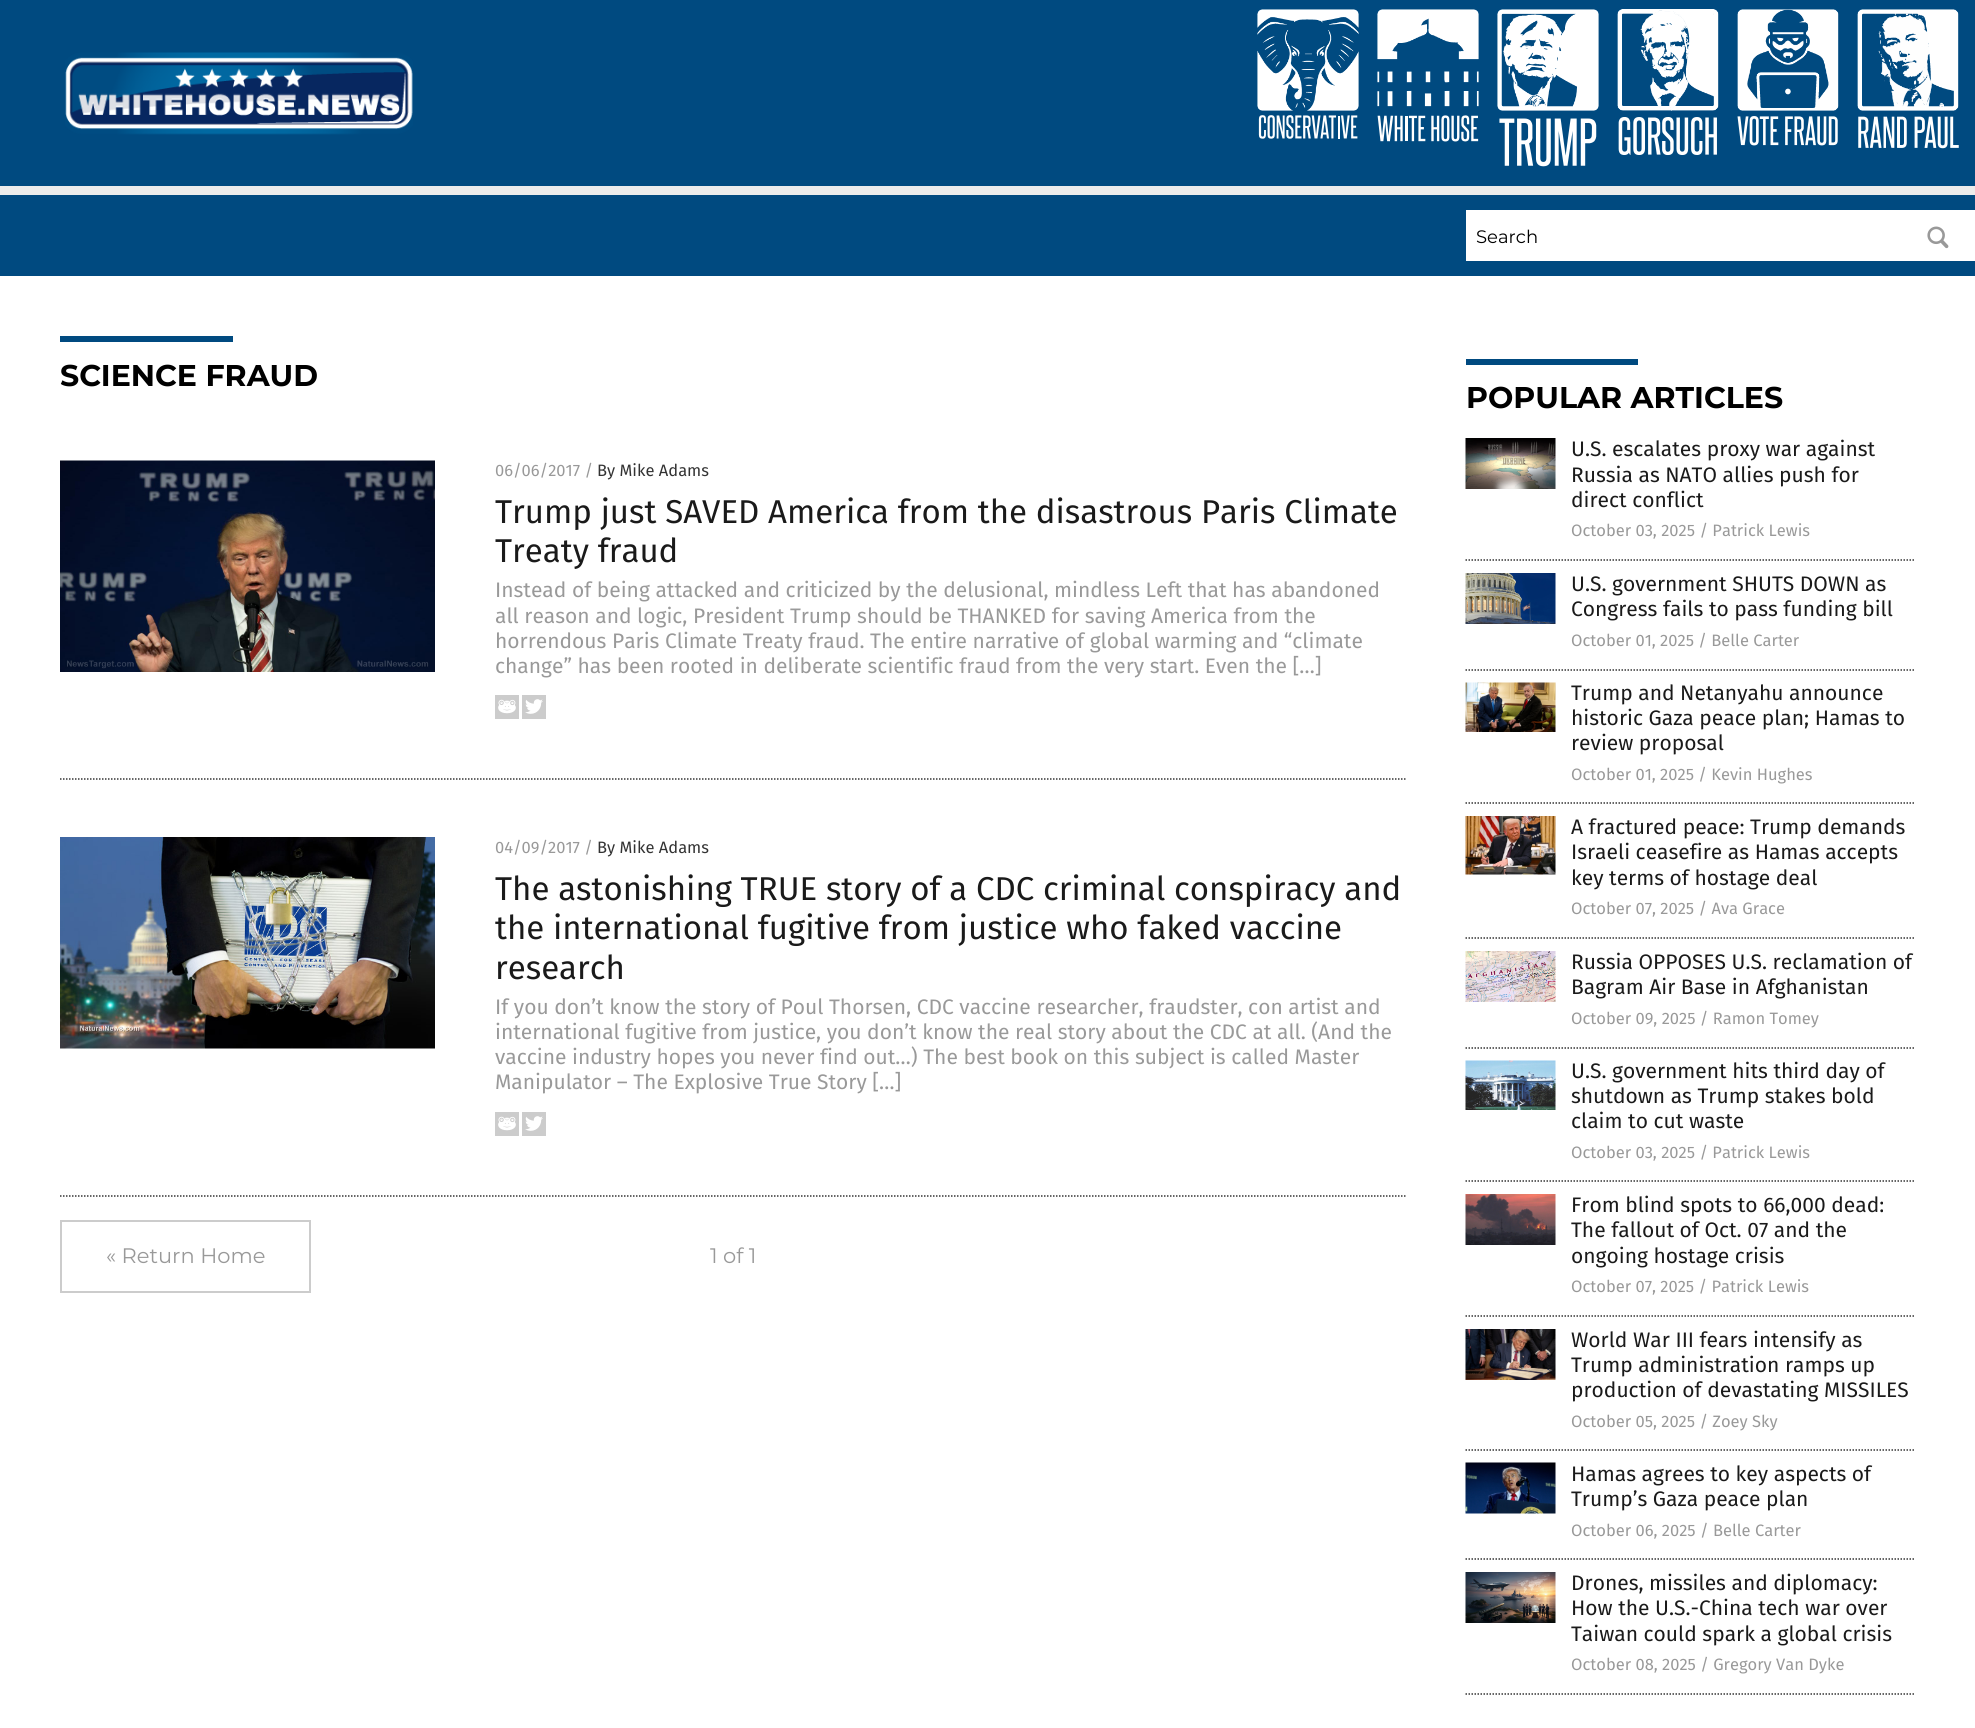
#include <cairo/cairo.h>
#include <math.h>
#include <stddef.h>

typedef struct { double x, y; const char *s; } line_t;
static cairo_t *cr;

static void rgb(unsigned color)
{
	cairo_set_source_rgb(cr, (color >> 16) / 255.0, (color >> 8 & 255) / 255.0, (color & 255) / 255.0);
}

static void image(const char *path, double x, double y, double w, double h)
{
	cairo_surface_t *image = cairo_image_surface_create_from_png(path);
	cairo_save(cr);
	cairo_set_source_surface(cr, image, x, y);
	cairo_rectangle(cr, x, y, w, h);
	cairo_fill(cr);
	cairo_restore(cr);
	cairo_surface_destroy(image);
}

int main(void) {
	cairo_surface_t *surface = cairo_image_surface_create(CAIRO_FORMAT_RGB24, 1975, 1728);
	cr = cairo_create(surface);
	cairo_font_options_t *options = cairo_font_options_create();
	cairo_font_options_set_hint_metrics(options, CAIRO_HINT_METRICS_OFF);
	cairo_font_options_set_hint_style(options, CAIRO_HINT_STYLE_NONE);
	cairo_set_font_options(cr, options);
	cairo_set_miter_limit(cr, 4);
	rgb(0x004a80);
	cairo_paint(cr);
	image("img/1.png", 65, 52, 348, 83);
	image("img/2.png", 1257, 9, 102, 102);
	image("img/3.png", 1258, 115, 100, 24);
	image("img/4.png", 1377, 9, 102, 98);
	image("img/5.png", 1377, 115, 102, 27);
	image("img/6.png", 1497, 9, 102, 102);
	image("img/7.png", 1499, 118, 98, 49);
	image("img/8.png", 1617, 9, 102, 102);
	image("img/9.png", 1618, 117, 99, 39);
	image("img/10.png", 1737, 9, 102, 102);
	image("img/11.png", 1737, 116, 101, 30);
	image("img/12.png", 1857, 9, 102, 102);
	image("img/13.png", 1858, 116, 101, 33);
	rgb(0xececec);
	cairo_rectangle(cr, 0, 186, 1975, 9);
	cairo_fill(cr);
	rgb(0xffffff);
	cairo_rectangle(cr, 1466, 210, 509, 51);
	cairo_fill(cr);
	image("img/14.png", 1927, 226, 22, 23);
	cairo_rectangle(cr, 0, 276, 1975, 1452);
	cairo_fill(cr);
	rgb(0x004a80);
	cairo_rectangle(cr, 60, 336, 173, 6);
	cairo_fill(cr);
	cairo_new_path(cr);
	cairo_move_to(cr, 60, 779);
	cairo_line_to(cr, 1405.5, 779);
	rgb(0x343434);
	cairo_set_line_width(cr, 1.5);
	cairo_set_dash(cr, (double[]){1.5, 1.5}, 2, 0);
	cairo_stroke(cr);
	image("img/15.png", 60, 460, 375, 212);
	image("img/16.png", 495, 695, 24, 24);
	image("img/17.png", 522, 695, 24, 24);
	cairo_new_path(cr);
	cairo_move_to(cr, 60, 1196);
	cairo_line_to(cr, 1405.5, 1196);
	cairo_stroke(cr);
	image("img/18.png", 60, 837, 375, 212);
	image("img/16.png", 495, 1112, 24, 24);
	image("img/17.png", 522, 1112, 24, 24);
	cairo_rectangle(cr, 61, 1221, 249, 71);
	rgb(0xcccccc);
	cairo_set_line_width(cr, 2);
	cairo_set_dash(cr, NULL, 0, 0);
	cairo_stroke(cr);
	rgb(0x004a80);
	cairo_rectangle(cr, 1466, 359, 172, 6);
	cairo_fill(cr);
	cairo_new_path(cr);
	cairo_move_to(cr, 1465.5, 560);
	cairo_line_to(cr, 1915.5, 560);
	rgb(0x343434);
	cairo_set_line_width(cr, 1.5);
	cairo_set_dash(cr, (double[]){1.5, 1.5}, 2, 0);
	cairo_stroke(cr);
	image("img/19.png", 1465, 438, 91, 51);
	cairo_new_path(cr);
	cairo_move_to(cr, 1465.5, 670);
	cairo_line_to(cr, 1915.5, 670);
	cairo_stroke(cr);
	image("img/20.png", 1465, 573, 91, 51);
	cairo_new_path(cr);
	cairo_move_to(cr, 1465.5, 803);
	cairo_line_to(cr, 1915.5, 803);
	cairo_stroke(cr);
	image("img/21.png", 1465, 682, 91, 50);
	cairo_new_path(cr);
	cairo_move_to(cr, 1465.5, 938);
	cairo_line_to(cr, 1915.5, 938);
	cairo_stroke(cr);
	image("img/22.png", 1465, 816, 91, 59);
	cairo_new_path(cr);
	cairo_move_to(cr, 1465.5, 1048);
	cairo_line_to(cr, 1915.5, 1048);
	cairo_stroke(cr);
	image("img/23.png", 1465, 951, 91, 51);
	cairo_new_path(cr);
	cairo_move_to(cr, 1465.5, 1181);
	cairo_line_to(cr, 1915.5, 1181);
	cairo_stroke(cr);
	image("img/24.png", 1465, 1060, 91, 50);
	cairo_new_path(cr);
	cairo_move_to(cr, 1465.5, 1316);
	cairo_line_to(cr, 1915.5, 1316);
	cairo_stroke(cr);
	image("img/25.png", 1465, 1194, 91, 51);
	cairo_new_path(cr);
	cairo_move_to(cr, 1465.5, 1450);
	cairo_line_to(cr, 1915.5, 1450);
	cairo_stroke(cr);
	image("img/26.png", 1465, 1329, 91, 51);
	cairo_new_path(cr);
	cairo_move_to(cr, 1465.5, 1559);
	cairo_line_to(cr, 1915.5, 1559);
	cairo_stroke(cr);
	image("img/27.png", 1465, 1462, 91, 52);
	cairo_new_path(cr);
	cairo_move_to(cr, 1465.5, 1694);
	cairo_line_to(cr, 1915.5, 1694);
	cairo_stroke(cr);
	image("img/28.png", 1465, 1572, 91, 51);
	cairo_select_font_face(cr, "Montserrat", CAIRO_FONT_SLANT_NORMAL, CAIRO_FONT_WEIGHT_NORMAL);
	cairo_set_font_size(cr, 18);
	rgb(0x000000);
	cairo_move_to(cr, 1476, 243);
	cairo_show_text(cr, "Search");
	cairo_select_font_face(cr, "Montserrat", CAIRO_FONT_SLANT_NORMAL, CAIRO_FONT_WEIGHT_BOLD);
	cairo_set_font_size(cr, 30);
	cairo_move_to(cr, 60, 386);
	cairo_show_text(cr, "SCIENCE FRAUD");
	cairo_select_font_face(cr, "Fira Sans", CAIRO_FONT_SLANT_NORMAL, CAIRO_FONT_WEIGHT_NORMAL);
	cairo_set_font_size(cr, 16.5);
	rgb(0x999999);
	cairo_move_to(cr, 495, 476);
	cairo_show_text(cr, "06/06/2017 /");
	rgb(0x333333);
	cairo_move_to(cr, 597, 476);
	cairo_show_text(cr, "By Mike Adams");
	cairo_set_font_size(cr, 33);
	rgb(0x1a1a1a);
	cairo_move_to(cr, 495, 523);
	cairo_show_text(cr, "Trump just SAVED America from the disastrous Paris Climate");
	cairo_move_to(cr, 495, 562);
	cairo_show_text(cr, "Treaty fraud");
	cairo_set_font_size(cr, 21);
	rgb(0x999999);
	{
		static const line_t items[] = {
			{495, 597, "Instead of being attacked and criticized by the delusional, mindless Left that has abandoned"},
			{495, 623, "all reason and logic, President Trump should be THANKED for saving America from the"},
			{495, 648, "horrendous Paris Climate Treaty fraud. The entire narrative of global warming and “climate"},
			{495, 673, "change” has been rooted in deliberate scientific fraud from the very start. Even the […]"},
		};
		for (size_t i = 0; i < sizeof items / sizeof *items; i++) {
			cairo_move_to(cr, items[i].x, items[i].y);
			cairo_show_text(cr, items[i].s);
		}
	}
	cairo_set_font_size(cr, 16.5);
	cairo_move_to(cr, 495, 853);
	cairo_show_text(cr, "04/09/2017 /");
	rgb(0x333333);
	cairo_move_to(cr, 597, 853);
	cairo_show_text(cr, "By Mike Adams");
	cairo_set_font_size(cr, 33);
	rgb(0x1a1a1a);
	{
		static const line_t items[] = {
			{495, 900, "The astonishing TRUE story of a CDC criminal conspiracy and"},
			{495, 939, "the international fugitive from justice who faked vaccine"},
			{495, 979, "research"},
		};
		for (size_t i = 0; i < sizeof items / sizeof *items; i++) {
			cairo_move_to(cr, items[i].x, items[i].y);
			cairo_show_text(cr, items[i].s);
		}
	}
	cairo_set_font_size(cr, 21);
	rgb(0x999999);
	{
		static const line_t items[] = {
			{495, 1014, "If you don’t know the story of Poul Thorsen, CDC vaccine researcher, fraudster, con artist and"},
			{495, 1039, "international fugitive from justice, you don’t know the real story about the CDC at all. (And the"},
			{495, 1064, "vaccine industry hopes you never find out…) The best book on this subject is called Master"},
			{495, 1089, "Manipulator – The Explosive True Story […]"},
		};
		for (size_t i = 0; i < sizeof items / sizeof *items; i++) {
			cairo_move_to(cr, items[i].x, items[i].y);
			cairo_show_text(cr, items[i].s);
		}
	}
	cairo_select_font_face(cr, "Montserrat", CAIRO_FONT_SLANT_NORMAL, CAIRO_FONT_WEIGHT_NORMAL);
	cairo_move_to(cr, 106, 1263);
	cairo_show_text(cr, "« Return Home");
	cairo_move_to(cr, 710, 1263);
	cairo_show_text(cr, "1 of 1");
	cairo_select_font_face(cr, "Montserrat", CAIRO_FONT_SLANT_NORMAL, CAIRO_FONT_WEIGHT_BOLD);
	cairo_set_font_size(cr, 30);
	rgb(0x000000);
	cairo_move_to(cr, 1466, 408);
	cairo_show_text(cr, "POPULAR ARTICLES");
	cairo_select_font_face(cr, "Fira Sans", CAIRO_FONT_SLANT_NORMAL, CAIRO_FONT_WEIGHT_NORMAL);
	cairo_set_font_size(cr, 21);
	rgb(0x1a1a1a);
	{
		static const line_t items[] = {
			{1571, 456, "U.S. escalates proxy war against"},
			{1571, 482, "Russia as NATO allies push for"},
			{1571, 507, "direct conflict"},
		};
		for (size_t i = 0; i < sizeof items / sizeof *items; i++) {
			cairo_move_to(cr, items[i].x, items[i].y);
			cairo_show_text(cr, items[i].s);
		}
	}
	cairo_set_font_size(cr, 16.5);
	rgb(0x999999);
	cairo_move_to(cr, 1571, 536);
	cairo_show_text(cr, "October 03, 2025 / Patrick Lewis");
	cairo_set_font_size(cr, 21);
	rgb(0x1a1a1a);
	cairo_move_to(cr, 1571, 591);
	cairo_show_text(cr, "U.S. government SHUTS DOWN as");
	cairo_move_to(cr, 1571, 616);
	cairo_show_text(cr, "Congress fails to pass funding bill");
	cairo_set_font_size(cr, 16.5);
	rgb(0x999999);
	cairo_move_to(cr, 1571, 646);
	cairo_show_text(cr, "October 01, 2025 / Belle Carter");
	cairo_set_font_size(cr, 21);
	rgb(0x1a1a1a);
	{
		static const line_t items[] = {
			{1571, 700, "Trump and Netanyahu announce"},
			{1571, 725, "historic Gaza peace plan; Hamas to"},
			{1571, 750, "review proposal"},
		};
		for (size_t i = 0; i < sizeof items / sizeof *items; i++) {
			cairo_move_to(cr, items[i].x, items[i].y);
			cairo_show_text(cr, items[i].s);
		}
	}
	cairo_set_font_size(cr, 16.5);
	rgb(0x999999);
	cairo_move_to(cr, 1571, 780);
	cairo_show_text(cr, "October 01, 2025 / Kevin Hughes");
	cairo_set_font_size(cr, 21);
	rgb(0x1a1a1a);
	{
		static const line_t items[] = {
			{1571, 834, "A fractured peace: Trump demands"},
			{1571, 859, "Israeli ceasefire as Hamas accepts"},
			{1571, 885, "key terms of hostage deal"},
		};
		for (size_t i = 0; i < sizeof items / sizeof *items; i++) {
			cairo_move_to(cr, items[i].x, items[i].y);
			cairo_show_text(cr, items[i].s);
		}
	}
	cairo_set_font_size(cr, 16.5);
	rgb(0x999999);
	cairo_move_to(cr, 1571, 914);
	cairo_show_text(cr, "October 07, 2025 / Ava Grace");
	cairo_set_font_size(cr, 21);
	rgb(0x1a1a1a);
	cairo_move_to(cr, 1571, 969);
	cairo_show_text(cr, "Russia OPPOSES U.S. reclamation of");
	cairo_move_to(cr, 1571, 994);
	cairo_show_text(cr, "Bagram Air Base in Afghanistan");
	cairo_set_font_size(cr, 16.5);
	rgb(0x999999);
	cairo_move_to(cr, 1571, 1024);
	cairo_show_text(cr, "October 09, 2025 / Ramon Tomey");
	cairo_set_font_size(cr, 21);
	rgb(0x1a1a1a);
	{
		static const line_t items[] = {
			{1571, 1078, "U.S. government hits third day of"},
			{1571, 1103, "shutdown as Trump stakes bold"},
			{1571, 1128, "claim to cut waste"},
		};
		for (size_t i = 0; i < sizeof items / sizeof *items; i++) {
			cairo_move_to(cr, items[i].x, items[i].y);
			cairo_show_text(cr, items[i].s);
		}
	}
	cairo_set_font_size(cr, 16.5);
	rgb(0x999999);
	cairo_move_to(cr, 1571, 1158);
	cairo_show_text(cr, "October 03, 2025 / Patrick Lewis");
	cairo_set_font_size(cr, 21);
	rgb(0x1a1a1a);
	{
		static const line_t items[] = {
			{1571, 1212, "From blind spots to 66,000 dead:"},
			{1571, 1237, "The fallout of Oct. 07 and the"},
			{1571, 1263, "ongoing hostage crisis"},
		};
		for (size_t i = 0; i < sizeof items / sizeof *items; i++) {
			cairo_move_to(cr, items[i].x, items[i].y);
			cairo_show_text(cr, items[i].s);
		}
	}
	cairo_set_font_size(cr, 16.5);
	rgb(0x999999);
	cairo_move_to(cr, 1571, 1292);
	cairo_show_text(cr, "October 07, 2025 / Patrick Lewis");
	cairo_set_font_size(cr, 21);
	rgb(0x1a1a1a);
	{
		static const line_t items[] = {
			{1571, 1347, "World War III fears intensify as"},
			{1571, 1372, "Trump administration ramps up"},
			{1571, 1397, "production of devastating MISSILES"},
		};
		for (size_t i = 0; i < sizeof items / sizeof *items; i++) {
			cairo_move_to(cr, items[i].x, items[i].y);
			cairo_show_text(cr, items[i].s);
		}
	}
	cairo_set_font_size(cr, 16.5);
	rgb(0x999999);
	cairo_move_to(cr, 1571, 1427);
	cairo_show_text(cr, "October 05, 2025 / Zoey Sky");
	cairo_set_font_size(cr, 21);
	rgb(0x1a1a1a);
	cairo_move_to(cr, 1571, 1481);
	cairo_show_text(cr, "Hamas agrees to key aspects of");
	cairo_move_to(cr, 1571, 1506);
	cairo_show_text(cr, "Trump’s Gaza peace plan");
	cairo_set_font_size(cr, 16.5);
	rgb(0x999999);
	cairo_move_to(cr, 1571, 1536);
	cairo_show_text(cr, "October 06, 2025 / Belle Carter");
	cairo_set_font_size(cr, 21);
	rgb(0x1a1a1a);
	{
		static const line_t items[] = {
			{1571, 1590, "Drones, missiles and diplomacy:"},
			{1571, 1615, "How the U.S.-China tech war over"},
			{1571, 1641, "Taiwan could spark a global crisis"},
		};
		for (size_t i = 0; i < sizeof items / sizeof *items; i++) {
			cairo_move_to(cr, items[i].x, items[i].y);
			cairo_show_text(cr, items[i].s);
		}
	}
	cairo_set_font_size(cr, 16.5);
	rgb(0x999999);
	cairo_move_to(cr, 1571, 1670);
	cairo_show_text(cr, "October 08, 2025 / Gregory Van Dyke");
	cairo_surface_write_to_png(surface, "page.png");
	cairo_font_options_destroy(options);
	cairo_destroy(cr);
	cairo_surface_destroy(surface);
	return 0;
}
